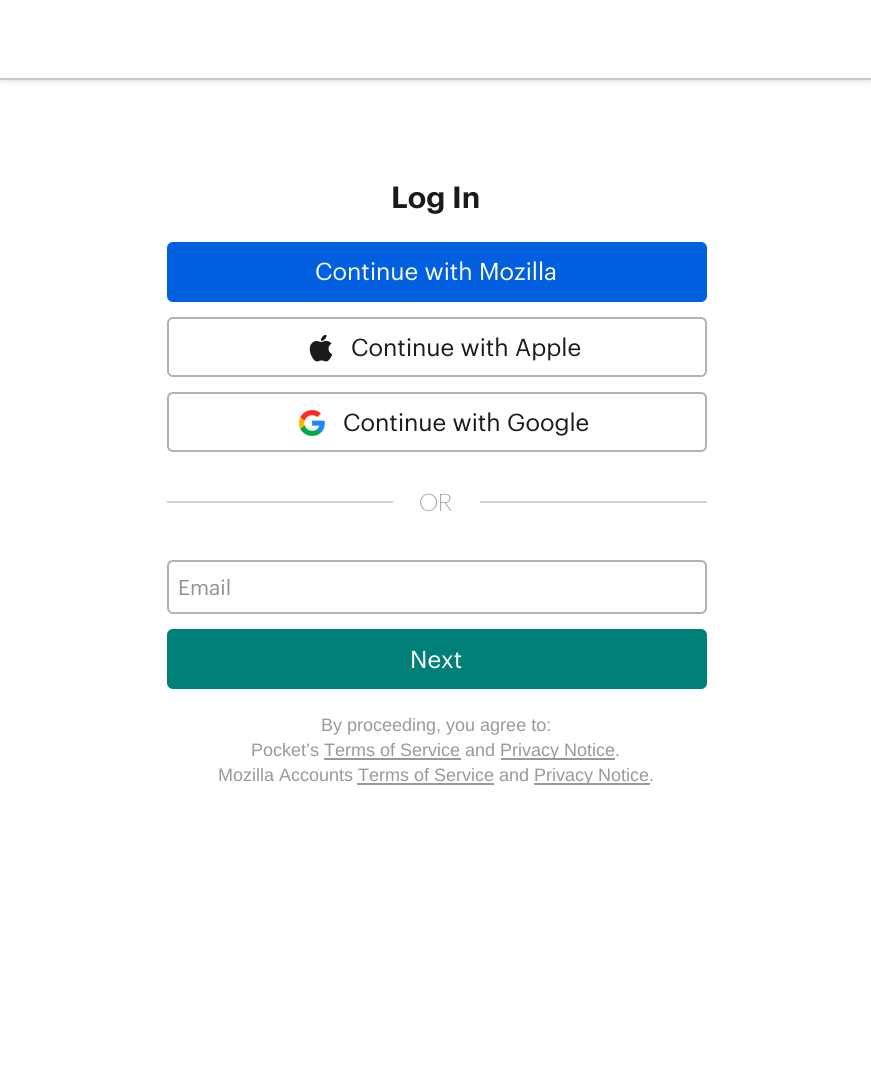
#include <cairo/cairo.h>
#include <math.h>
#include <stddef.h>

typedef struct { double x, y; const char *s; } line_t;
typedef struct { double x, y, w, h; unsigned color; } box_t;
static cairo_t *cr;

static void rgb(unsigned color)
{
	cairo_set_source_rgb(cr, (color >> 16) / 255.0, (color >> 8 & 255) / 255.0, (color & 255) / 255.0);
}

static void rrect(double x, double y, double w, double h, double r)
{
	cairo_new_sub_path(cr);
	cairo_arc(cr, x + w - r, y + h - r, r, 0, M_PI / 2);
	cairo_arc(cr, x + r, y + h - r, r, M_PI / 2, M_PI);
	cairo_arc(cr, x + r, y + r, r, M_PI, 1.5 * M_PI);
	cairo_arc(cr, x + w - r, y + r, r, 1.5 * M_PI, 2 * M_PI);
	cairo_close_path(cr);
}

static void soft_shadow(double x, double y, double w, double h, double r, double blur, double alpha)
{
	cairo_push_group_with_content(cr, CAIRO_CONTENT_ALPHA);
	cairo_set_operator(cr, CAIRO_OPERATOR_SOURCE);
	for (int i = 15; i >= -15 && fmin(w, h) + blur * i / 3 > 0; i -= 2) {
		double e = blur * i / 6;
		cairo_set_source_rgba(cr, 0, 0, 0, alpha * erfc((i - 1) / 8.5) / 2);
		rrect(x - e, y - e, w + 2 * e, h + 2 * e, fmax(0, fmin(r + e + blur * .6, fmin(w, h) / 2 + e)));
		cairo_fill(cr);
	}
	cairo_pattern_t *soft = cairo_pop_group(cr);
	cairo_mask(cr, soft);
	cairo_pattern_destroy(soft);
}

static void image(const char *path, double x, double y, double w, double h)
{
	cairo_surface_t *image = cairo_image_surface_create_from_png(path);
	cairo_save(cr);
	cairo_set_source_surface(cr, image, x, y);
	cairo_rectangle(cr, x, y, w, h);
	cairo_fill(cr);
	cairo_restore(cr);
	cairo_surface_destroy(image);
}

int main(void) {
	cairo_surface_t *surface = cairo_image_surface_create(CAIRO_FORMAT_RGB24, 871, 1087);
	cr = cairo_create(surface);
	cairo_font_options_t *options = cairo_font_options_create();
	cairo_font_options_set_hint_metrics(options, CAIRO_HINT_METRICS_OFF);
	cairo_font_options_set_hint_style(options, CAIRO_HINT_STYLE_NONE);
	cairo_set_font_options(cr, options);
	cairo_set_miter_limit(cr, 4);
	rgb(0xffffff);
	cairo_paint(cr);
	rgb(0x000000);
	soft_shadow(0, 0, 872, 80, 0, 4, 0.15);
	rgb(0xffffff);
	cairo_rectangle(cr, 0, 0, 871, 78);
	cairo_fill(cr);
	rgb(0xc8c8c8);
	cairo_rectangle(cr, 0, 78, 871, 2);
	cairo_fill(cr);
	rgb(0x0060df);
	rrect(167, 242, 540, 60, 6);
	cairo_fill(cr);
	rrect(168, 318, 538, 58, 5);
	rgb(0xb2b2b2);
	cairo_stroke(cr);
	image("img/1.png", 309, 335, 24, 27);
	rrect(168, 393, 538, 58, 5);
	cairo_stroke(cr);
	image("img/2.png", 299, 410, 26, 26);
	rgb(0xd3d3d3);
	cairo_rectangle(cr, 167, 501, 226, 2);
	cairo_fill(cr);
	cairo_rectangle(cr, 480, 501, 227, 2);
	cairo_fill(cr);
	rrect(168, 561, 538, 52, 5);
	rgb(0xb2b2b2);
	cairo_stroke(cr);
	rgb(0x008078);
	rrect(167, 629, 540, 60, 6);
	cairo_fill(cr);
	{
		static const box_t items[] = {
			{501, 758, 114, 2, 0x999999},
			{324, 758, 137, 2, 0x999999},
			{534, 783, 116, 2, 0x999999},
			{357, 783, 137, 2, 0x999999},
		};
		for (size_t i = 0; i < sizeof items / sizeof *items; i++) {
			rgb(items[i].color);
			cairo_rectangle(cr, items[i].x, items[i].y, items[i].w, items[i].h);
			cairo_fill(cr);
		}
	}
	cairo_select_font_face(cr, "Graphik SemiBold", CAIRO_FONT_SLANT_NORMAL, CAIRO_FONT_WEIGHT_NORMAL);
	cairo_set_font_size(cr, 30);
	rgb(0x1a1a1a);
	cairo_move_to(cr, 391, 208);
	cairo_show_text(cr, "Log In");
	cairo_select_font_face(cr, "Graphik", CAIRO_FONT_SLANT_NORMAL, CAIRO_FONT_WEIGHT_NORMAL);
	cairo_set_font_size(cr, 24);
	rgb(0xffffff);
	cairo_move_to(cr, 315, 280);
	cairo_show_text(cr, "Continue with Mozilla");
	rgb(0x1a1a1a);
	cairo_move_to(cr, 351, 356);
	cairo_show_text(cr, "Continue with Apple");
	cairo_move_to(cr, 343, 431);
	cairo_show_text(cr, "Continue with Google");
	cairo_select_font_face(cr, "Graphik ExtraLight", CAIRO_FONT_SLANT_NORMAL, CAIRO_FONT_WEIGHT_NORMAL);
	rgb(0x919191);
	cairo_move_to(cr, 419, 511);
	cairo_show_text(cr, "OR");
	cairo_select_font_face(cr, "Graphik", CAIRO_FONT_SLANT_NORMAL, CAIRO_FONT_WEIGHT_NORMAL);
	cairo_set_font_size(cr, 21);
	cairo_move_to(cr, 178, 595);
	cairo_show_text(cr, "Email");
	cairo_set_font_size(cr, 24);
	rgb(0xffffff);
	cairo_move_to(cr, 410, 668);
	cairo_show_text(cr, "Next");
	cairo_select_font_face(cr, "Liberation Sans", CAIRO_FONT_SLANT_NORMAL, CAIRO_FONT_WEIGHT_NORMAL);
	cairo_set_font_size(cr, 18);
	rgb(0x999999);
	{
		static const line_t items[] = {
			{321, 731, "By proceeding, you agree to:"},
			{251, 756, "Pocket’s Terms of Service and"},
			{500, 756, "Privacy Notice."},
			{218, 781, "Mozilla Accounts Terms of Service and"},
			{534, 781, "Privacy Notice."},
		};
		for (size_t i = 0; i < sizeof items / sizeof *items; i++) {
			cairo_move_to(cr, items[i].x, items[i].y);
			cairo_show_text(cr, items[i].s);
		}
	}
	cairo_surface_write_to_png(surface, "page.png");
	cairo_font_options_destroy(options);
	cairo_destroy(cr);
	cairo_surface_destroy(surface);
	return 0;
}
